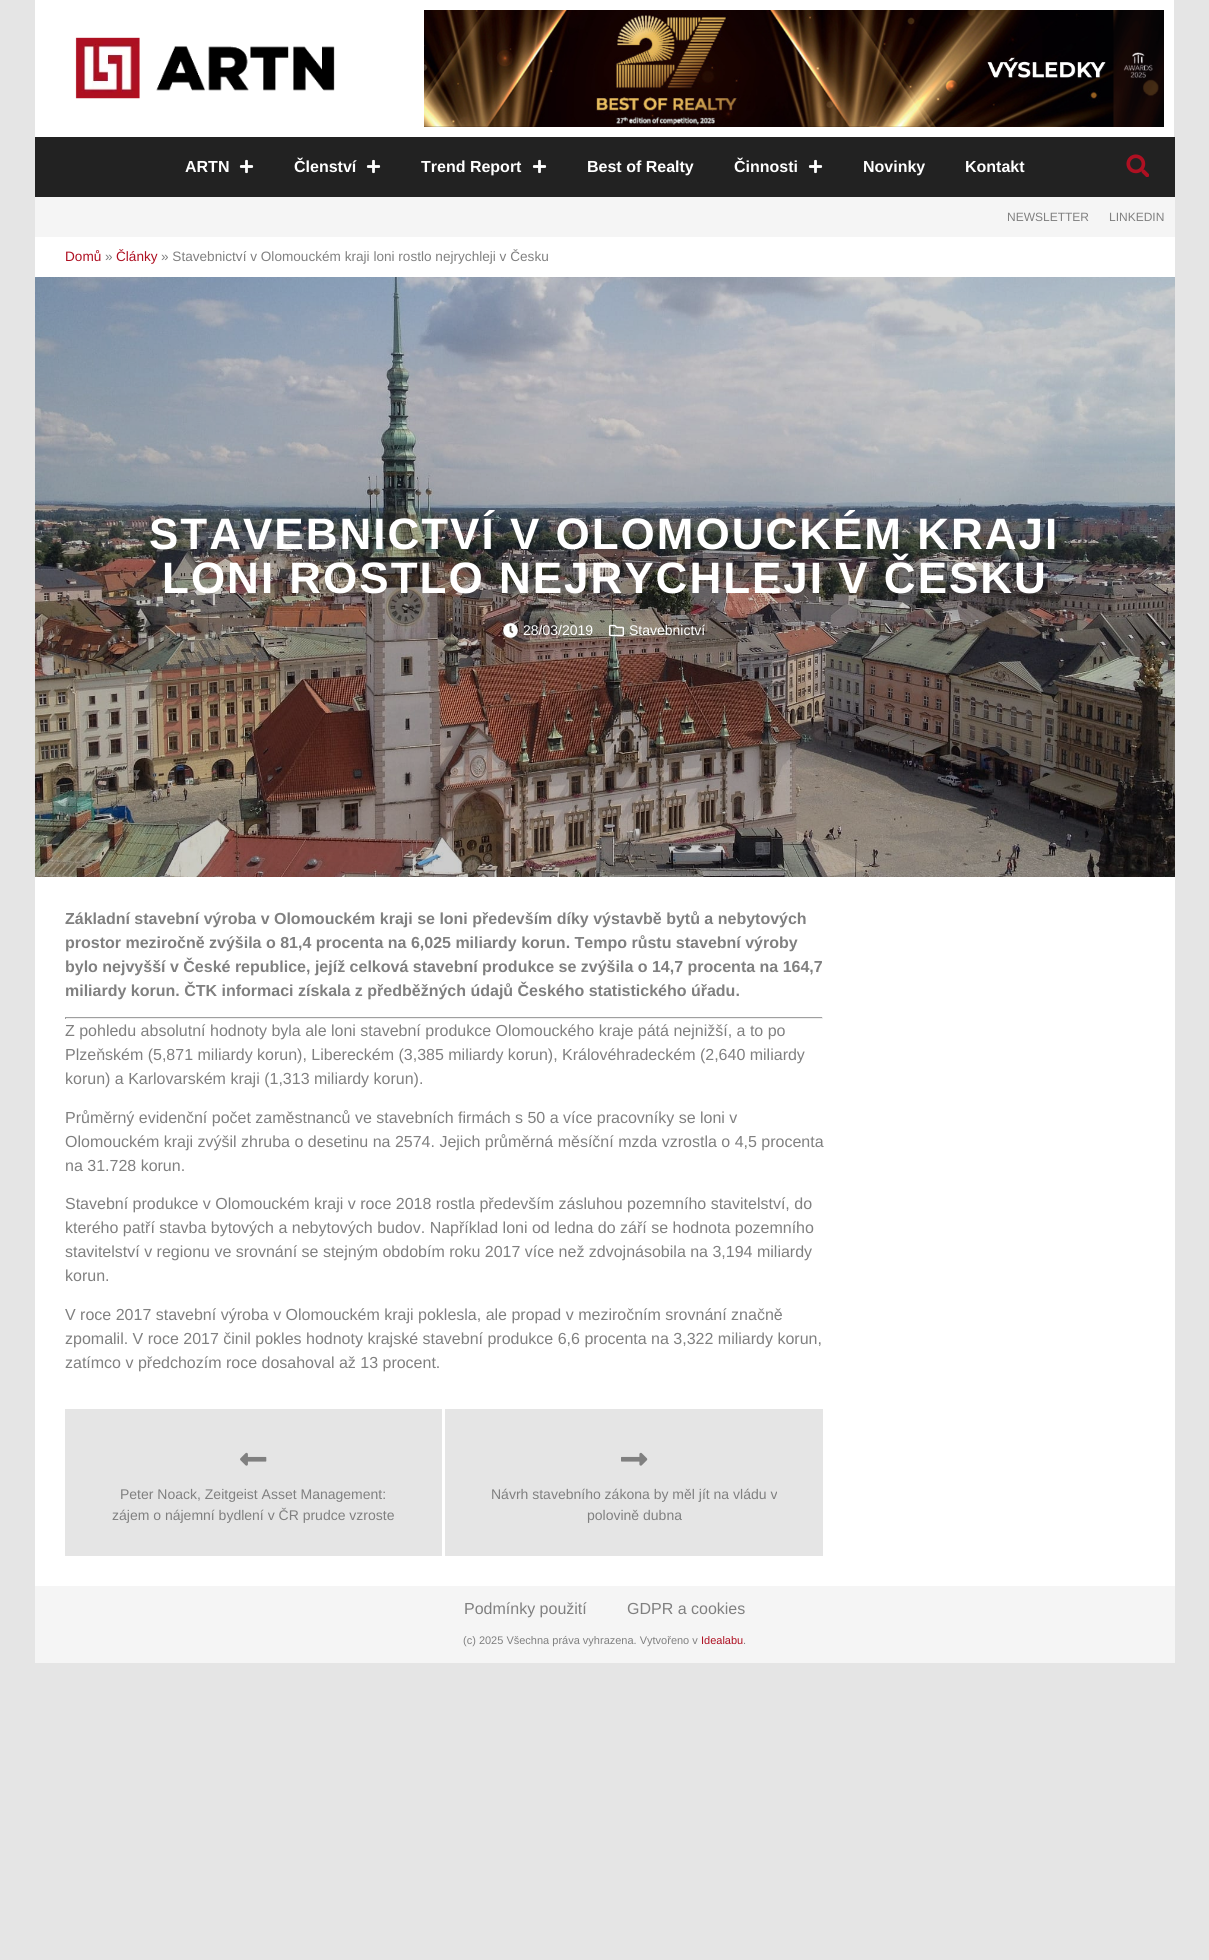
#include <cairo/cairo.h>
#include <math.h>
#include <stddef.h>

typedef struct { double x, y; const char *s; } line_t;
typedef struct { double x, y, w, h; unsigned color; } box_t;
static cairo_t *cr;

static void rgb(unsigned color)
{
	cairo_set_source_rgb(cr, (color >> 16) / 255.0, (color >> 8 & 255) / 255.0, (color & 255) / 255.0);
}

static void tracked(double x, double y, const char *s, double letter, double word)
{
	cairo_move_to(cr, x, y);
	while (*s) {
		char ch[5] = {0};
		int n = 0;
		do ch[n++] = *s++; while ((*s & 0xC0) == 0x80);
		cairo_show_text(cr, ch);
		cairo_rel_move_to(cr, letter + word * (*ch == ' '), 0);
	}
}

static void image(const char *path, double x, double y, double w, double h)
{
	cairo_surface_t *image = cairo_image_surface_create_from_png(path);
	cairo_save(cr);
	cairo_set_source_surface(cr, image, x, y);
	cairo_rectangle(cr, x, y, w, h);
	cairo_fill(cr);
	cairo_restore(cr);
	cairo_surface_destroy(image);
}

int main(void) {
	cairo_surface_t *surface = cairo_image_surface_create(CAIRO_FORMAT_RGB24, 1209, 1960);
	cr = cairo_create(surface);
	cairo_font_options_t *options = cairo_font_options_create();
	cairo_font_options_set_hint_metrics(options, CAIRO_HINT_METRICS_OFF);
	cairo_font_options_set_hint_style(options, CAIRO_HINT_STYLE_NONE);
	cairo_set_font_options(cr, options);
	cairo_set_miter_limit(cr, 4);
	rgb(0xe5e5e5);
	cairo_paint(cr);
	rgb(0xffffff);
	cairo_rectangle(cr, 35, 0, 1139, 137);
	cairo_fill(cr);
	image("img/1.png", 75, 37, 260, 62);
	image("img/2.png", 424, 10, 740, 117);
	rgb(0x222222);
	cairo_rectangle(cr, 35, 137, 1140, 60);
	cairo_fill(cr);
	image("img/3.png", 239, 159, 15, 15);
	image("img/3.png", 366, 159, 15, 15);
	image("img/3.png", 532, 159, 15, 15);
	image("img/3.png", 808, 159, 15, 15);
	image("img/4.png", 1126, 154, 23, 23);
	rgb(0xf5f5f5);
	cairo_rectangle(cr, 35, 197, 1140, 40);
	cairo_fill(cr);
	rgb(0xffffff);
	cairo_rectangle(cr, 35, 237, 1140, 40);
	cairo_fill(cr);
	image("img/5.png", 35, 277, 1140, 600);
	image("img/6.png", 503, 623, 15, 15);
	image("img/7.png", 609, 624, 15, 13);
	{
		static const box_t items[] = {
			{35, 877, 1140, 709, 0xffffff},
			{65, 1017, 758, 1, 0x9f9f9f},
			{822, 1017, 1, 2, 0xeeeeee},
			{65, 1018, 758, 1, 0xeeeeee},
			{65, 1017, 1, 2, 0x9f9f9f},
			{65, 1409, 758, 147, 0xe5e5e5},
		};
		for (size_t i = 0; i < sizeof items / sizeof *items; i++) {
			rgb(items[i].color);
			cairo_rectangle(cr, items[i].x, items[i].y, items[i].w, items[i].h);
			cairo_fill(cr);
		}
	}
	image("img/8.png", 240, 1452, 27, 14);
	rgb(0xffffff);
	cairo_rectangle(cr, 442, 1409, 3, 147);
	cairo_fill(cr);
	image("img/9.png", 621, 1452, 27, 14);
	rgb(0xf5f5f5);
	cairo_rectangle(cr, 35, 1586, 1140, 77);
	cairo_fill(cr);
	cairo_select_font_face(cr, "Liberation Sans", CAIRO_FONT_SLANT_NORMAL, CAIRO_FONT_WEIGHT_BOLD);
	cairo_set_font_size(cr, 16);
	rgb(0xffffff);
	{
		static const line_t items[] = {
			{185, 172, "ARTN"},
			{294, 172, "Členství"},
			{421, 172, "Trend Report"},
			{587, 172, "Best of Realty"},
			{734, 172, "Činnosti"},
			{863, 172, "Novinky"},
			{965, 172, "Kontakt"},
		};
		for (size_t i = 0; i < sizeof items / sizeof *items; i++) {
			cairo_move_to(cr, items[i].x, items[i].y);
			cairo_show_text(cr, items[i].s);
		}
	}
	cairo_select_font_face(cr, "Liberation Sans", CAIRO_FONT_SLANT_NORMAL, CAIRO_FONT_WEIGHT_NORMAL);
	cairo_set_font_size(cr, 12);
	rgb(0x808080);
	cairo_move_to(cr, 1007, 221);
	cairo_show_text(cr, "NEWSLETTER");
	cairo_move_to(cr, 1109, 221);
	cairo_show_text(cr, "LINKEDIN");
	cairo_set_font_size(cr, 13.6);
	rgb(0xae1022);
	cairo_move_to(cr, 65, 261);
	cairo_show_text(cr, "Domů");
	rgb(0x808080);
	cairo_move_to(cr, 105, 261);
	cairo_show_text(cr, "»");
	rgb(0xae1022);
	cairo_move_to(cr, 116, 261);
	cairo_show_text(cr, "Články");
	rgb(0x808080);
	cairo_move_to(cr, 161, 261);
	cairo_show_text(cr, "» Stavebnictví v Olomouckém kraji loni rostlo nejrychleji v Česku");
	cairo_select_font_face(cr, "Liberation Sans", CAIRO_FONT_SLANT_NORMAL, CAIRO_FONT_WEIGHT_BOLD);
	cairo_set_font_size(cr, 44);
	rgb(0xffffff);
	tracked(149, 549, "STAVEBNICTVÍ V OLOMOUCKÉM KRAJI", 2, 0);
	tracked(162, 593, "LONI ROSTLO NEJRYCHLEJI V ČESKU", 2, 0);
	cairo_select_font_face(cr, "Liberation Sans", CAIRO_FONT_SLANT_NORMAL, CAIRO_FONT_WEIGHT_NORMAL);
	cairo_set_font_size(cr, 14);
	cairo_move_to(cr, 523, 635);
	cairo_show_text(cr, "28/03/2019");
	cairo_move_to(cr, 629, 635);
	cairo_show_text(cr, "Stavebnictví");
	cairo_select_font_face(cr, "Liberation Sans", CAIRO_FONT_SLANT_NORMAL, CAIRO_FONT_WEIGHT_BOLD);
	cairo_set_font_size(cr, 16);
	rgb(0x808080);
	{
		static const line_t items[] = {
			{65, 924, "Základní stavební výroba v Olomouckém kraji se loni především díky výstavbě bytů a nebytových"},
			{65, 948, "prostor meziročně zvýšila o 81,4 procenta na 6,025 miliardy korun. Tempo růstu stavební výroby"},
			{65, 972, "bylo nejvyšší v České republice, jejíž celková stavební produkce se zvýšila o 14,7 procenta na 164,7"},
			{65, 996, "miliardy korun. ČTK informaci získala z předběžných údajů Českého statistického úřadu."},
		};
		for (size_t i = 0; i < sizeof items / sizeof *items; i++) {
			cairo_move_to(cr, items[i].x, items[i].y);
			cairo_show_text(cr, items[i].s);
		}
	}
	cairo_select_font_face(cr, "Liberation Sans", CAIRO_FONT_SLANT_NORMAL, CAIRO_FONT_WEIGHT_NORMAL);
	{
		static const line_t items[] = {
			{65, 1036, "Z pohledu absolutní hodnoty byla ale loni stavební produkce Olomouckého kraje pátá nejnižší, a to po"},
			{65, 1060, "Plzeňském (5,871 miliardy korun), Libereckém (3,385 miliardy korun), Královéhradeckém (2,640 miliardy"},
			{65, 1084, "korun) a Karlovarském kraji (1,313 miliardy korun)."},
			{65, 1123, "Průměrný evidenční počet zaměstnanců ve stavebních firmách s 50 a více pracovníky se loni v"},
			{65, 1147, "Olomouckém kraji zvýšil zhruba o desetinu na 2574. Jejich průměrná měsíční mzda vzrostla o 4,5 procenta"},
			{65, 1171, "na 31.728 korun."},
			{65, 1209, "Stavební produkce v Olomouckém kraji v roce 2018 rostla především zásluhou pozemního stavitelství, do"},
			{65, 1233, "kterého patří stavba bytových a nebytových budov. Například loni od ledna do září se hodnota pozemního"},
			{65, 1257, "stavitelství v regionu ve srovnání se stejným obdobím roku 2017 více než zdvojnásobila na 3,194 miliardy"},
			{65, 1281, "korun."},
			{65, 1320, "V roce 2017 stavební výroba v Olomouckém kraji poklesla, ale propad v meziročním srovnání značně"},
			{65, 1344, "zpomalil. V roce 2017 činil pokles hodnoty krajské stavební produkce 6,6 procenta na 3,322 miliardy korun,"},
			{65, 1368, "zatímco v předchozím roce dosahoval až 13 procent."},
		};
		for (size_t i = 0; i < sizeof items / sizeof *items; i++) {
			cairo_move_to(cr, items[i].x, items[i].y);
			cairo_show_text(cr, items[i].s);
		}
	}
	cairo_set_font_size(cr, 14);
	{
		static const line_t items[] = {
			{120, 1499, "Peter Noack, Zeitgeist Asset Management:"},
			{112, 1520, "zájem o nájemní bydlení v ČR prudce vzroste"},
			{491, 1499, "Návrh stavebního zákona by měl jít na vládu v"},
			{587, 1520, "polovině dubna"},
		};
		for (size_t i = 0; i < sizeof items / sizeof *items; i++) {
			cairo_move_to(cr, items[i].x, items[i].y);
			cairo_show_text(cr, items[i].s);
		}
	}
	cairo_set_font_size(cr, 16);
	cairo_move_to(cr, 464, 1614);
	cairo_show_text(cr, "Podmínky použití");
	cairo_move_to(cr, 627, 1614);
	cairo_show_text(cr, "GDPR a cookies");
	cairo_set_font_size(cr, 11);
	cairo_move_to(cr, 463, 1644);
	cairo_show_text(cr, "(c) 2025 Všechna práva vyhrazena. Vytvořeno v");
	rgb(0xae1022);
	cairo_move_to(cr, 701, 1644);
	cairo_show_text(cr, "Idealabu");
	rgb(0x808080);
	cairo_move_to(cr, 743, 1644);
	cairo_show_text(cr, ".");
	cairo_surface_write_to_png(surface, "page.png");
	cairo_font_options_destroy(options);
	cairo_destroy(cr);
	cairo_surface_destroy(surface);
	return 0;
}
